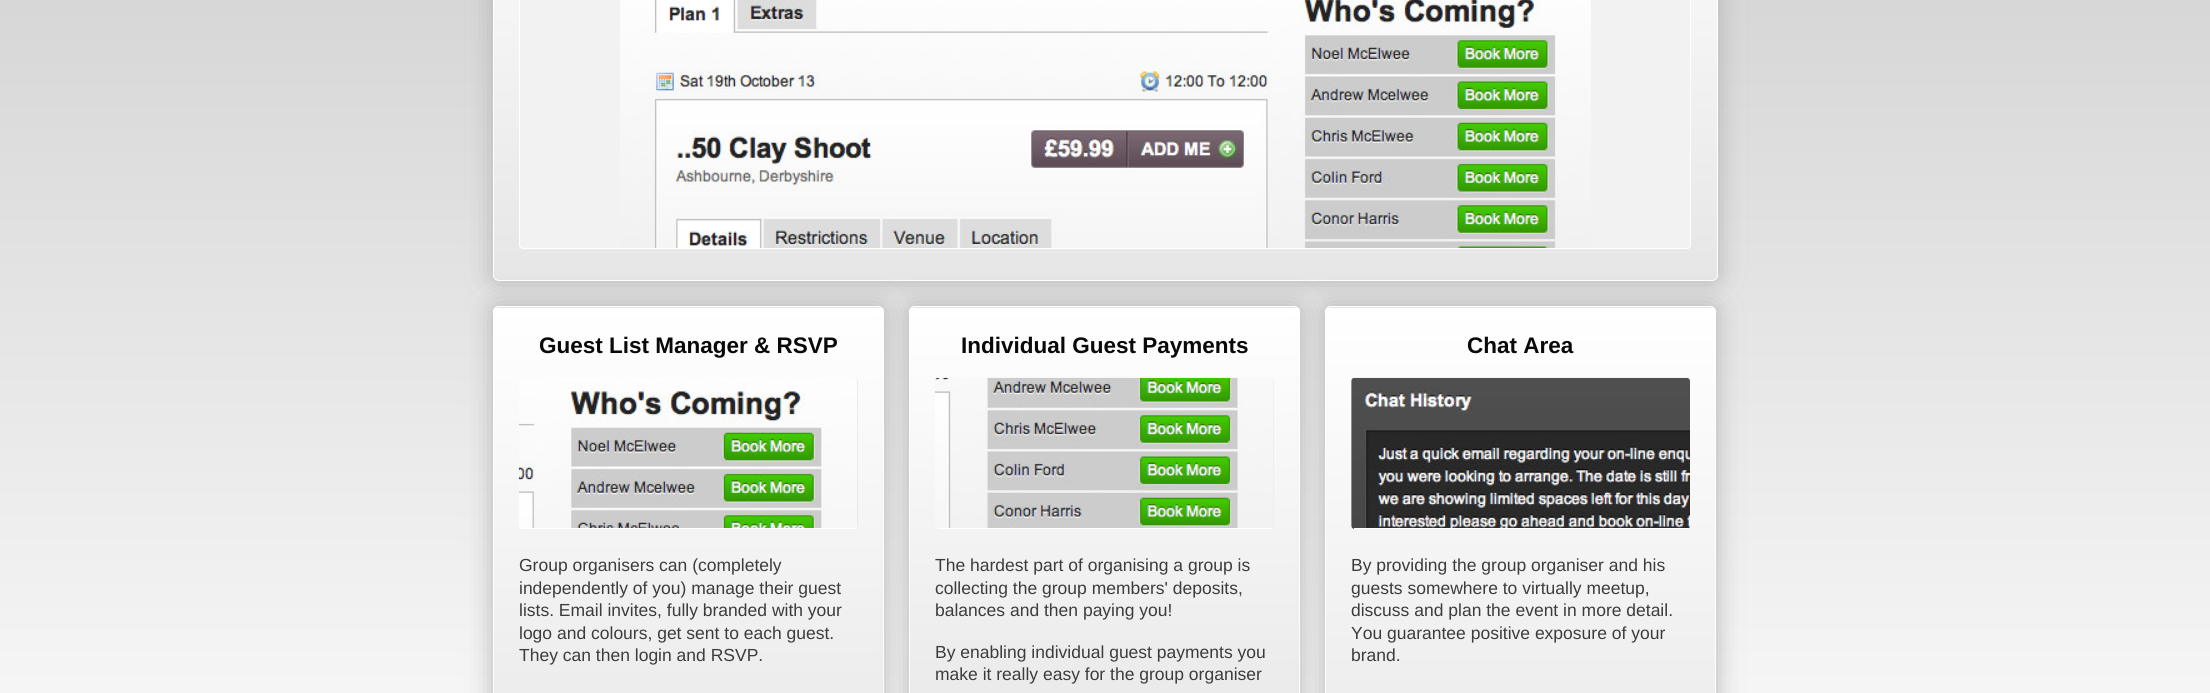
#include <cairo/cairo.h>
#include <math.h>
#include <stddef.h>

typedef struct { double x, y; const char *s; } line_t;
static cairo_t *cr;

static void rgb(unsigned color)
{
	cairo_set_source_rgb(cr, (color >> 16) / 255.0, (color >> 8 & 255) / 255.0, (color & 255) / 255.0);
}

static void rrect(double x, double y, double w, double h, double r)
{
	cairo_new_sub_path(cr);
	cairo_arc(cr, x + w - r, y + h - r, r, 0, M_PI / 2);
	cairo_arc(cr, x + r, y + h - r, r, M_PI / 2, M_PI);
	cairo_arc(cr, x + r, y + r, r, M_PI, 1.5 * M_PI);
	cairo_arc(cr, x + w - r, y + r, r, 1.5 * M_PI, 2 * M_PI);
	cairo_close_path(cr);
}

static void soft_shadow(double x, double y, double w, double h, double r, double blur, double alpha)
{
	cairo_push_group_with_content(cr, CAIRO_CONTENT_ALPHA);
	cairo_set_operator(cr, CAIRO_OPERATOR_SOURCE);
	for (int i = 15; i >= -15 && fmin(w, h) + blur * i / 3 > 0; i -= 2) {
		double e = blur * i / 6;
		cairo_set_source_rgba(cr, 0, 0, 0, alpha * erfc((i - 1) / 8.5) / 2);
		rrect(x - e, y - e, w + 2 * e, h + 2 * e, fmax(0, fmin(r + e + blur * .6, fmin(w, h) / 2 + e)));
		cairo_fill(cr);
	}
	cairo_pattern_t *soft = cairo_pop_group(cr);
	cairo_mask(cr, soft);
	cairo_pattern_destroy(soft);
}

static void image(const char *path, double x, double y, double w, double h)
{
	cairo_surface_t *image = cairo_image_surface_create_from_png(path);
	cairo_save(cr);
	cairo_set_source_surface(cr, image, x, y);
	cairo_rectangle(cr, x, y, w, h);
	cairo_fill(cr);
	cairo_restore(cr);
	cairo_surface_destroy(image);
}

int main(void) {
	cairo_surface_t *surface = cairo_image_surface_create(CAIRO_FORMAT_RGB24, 2210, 693);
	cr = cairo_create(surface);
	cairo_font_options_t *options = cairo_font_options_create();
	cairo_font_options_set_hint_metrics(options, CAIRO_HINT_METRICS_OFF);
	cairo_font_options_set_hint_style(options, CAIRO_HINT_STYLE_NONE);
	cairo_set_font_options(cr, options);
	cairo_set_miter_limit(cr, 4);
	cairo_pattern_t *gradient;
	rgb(0xffffff);
	cairo_paint(cr);
	gradient = cairo_pattern_create_linear(1105, -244, 1105, 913);
	cairo_pattern_add_color_stop_rgba(gradient, 0, 0.8, 0.8, 0.8, 1);
	cairo_pattern_add_color_stop_rgba(gradient, 1, 1, 1, 1, 1);
	cairo_set_source(cr, gradient);
	cairo_pattern_destroy(gradient);
	cairo_rectangle(cr, 0, 0, 2210, 693);
	cairo_fill(cr);
	rgb(0xb3b3b3);
	soft_shadow(493, -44, 1225, 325, 6, 12.5, 1);
	cairo_save(cr);
	rrect(493, -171, 1225, 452, 6);
	cairo_clip(cr);
	gradient = cairo_pattern_create_linear(1105, -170, 1105, 280);
	cairo_pattern_add_color_stop_rgba(gradient, 0, 1, 1, 1, 1);
	cairo_pattern_add_color_stop_rgba(gradient, 1, 0.902, 0.902, 0.902, 1);
	cairo_set_source(cr, gradient);
	cairo_pattern_destroy(gradient);
	cairo_rectangle(cr, 493, 0, 1225, 280);
	cairo_fill(cr);
	cairo_restore(cr);
	rrect(493.5, -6.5, 1224, 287, 5.5);
	rgb(0xffffff);
	cairo_set_line_width(cr, 1);
	cairo_stroke(cr);
	rgb(0xf2f2f2);
	rrect(519, -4, 1172, 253, 4);
	cairo_fill(cr);
	image("img/1.png", 620, 0, 971, 248);
	rrect(519.5, -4.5, 1171, 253, 3.5);
	rgb(0xffffff);
	cairo_stroke(cr);
	rgb(0xb3b3b3);
	soft_shadow(493, 306, 391, 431, 6, 12.5, 1);
	cairo_save(cr);
	rrect(493, 306, 391, 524, 6);
	cairo_clip(cr);
	gradient = cairo_pattern_create_linear(688, -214, 688, 308);
	cairo_pattern_add_color_stop_rgba(gradient, 0, 1, 1, 1, 1);
	cairo_pattern_add_color_stop_rgba(gradient, 1, 0.902, 0.902, 0.902, 1);
	cairo_set_source(cr, gradient);
	cairo_pattern_destroy(gradient);
	cairo_rectangle(cr, 493, 306, 391, 2);
	cairo_fill(cr);
	gradient = cairo_pattern_create_linear(688, 307, 688, 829);
	cairo_pattern_add_color_stop_rgba(gradient, 0, 1, 1, 1, 1);
	cairo_pattern_add_color_stop_rgba(gradient, 1, 0.902, 0.902, 0.902, 1);
	cairo_set_source(cr, gradient);
	cairo_pattern_destroy(gradient);
	cairo_rectangle(cr, 493, 308, 391, 385);
	cairo_fill(cr);
	cairo_restore(cr);
	rrect(493.5, 306.5, 390, 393, 5.5);
	rgb(0xffffff);
	cairo_stroke(cr);
	rgb(0xe6e6e6);
	cairo_new_path(cr);
	cairo_move_to(cr, 522, 378);
	cairo_line_to(cr, 854, 378);
	cairo_curve_to(cr, 856, 378, 858, 379, 858, 381);
	cairo_line_to(cr, 858, 525);
	cairo_curve_to(cr, 858, 526, 856, 528, 854, 528);
	cairo_line_to(cr, 522, 528);
	cairo_curve_to(cr, 520, 528, 519, 526, 519, 525);
	cairo_line_to(cr, 519, 381);
	cairo_curve_to(cr, 519, 379, 520, 378, 522, 378);
	cairo_close_path(cr);
	cairo_fill(cr);
	image("img/2.png", 518, 378, 340, 151);
	rgb(0xffffff);
	cairo_rectangle(cr, 521, 528, 335, 1);
	cairo_fill(cr);
	rgb(0xb3b3b3);
	soft_shadow(909, 306, 391, 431, 6, 12.5, 1);
	cairo_save(cr);
	rrect(909, 306, 391, 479, 6);
	cairo_clip(cr);
	gradient = cairo_pattern_create_linear(1104, -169, 1104, 308);
	cairo_pattern_add_color_stop_rgba(gradient, 0, 1, 1, 1, 1);
	cairo_pattern_add_color_stop_rgba(gradient, 1, 0.902, 0.902, 0.902, 1);
	cairo_set_source(cr, gradient);
	cairo_pattern_destroy(gradient);
	cairo_rectangle(cr, 909, 306, 391, 2);
	cairo_fill(cr);
	gradient = cairo_pattern_create_linear(1104, 307, 1104, 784);
	cairo_pattern_add_color_stop_rgba(gradient, 0, 1, 1, 1, 1);
	cairo_pattern_add_color_stop_rgba(gradient, 1, 0.902, 0.902, 0.902, 1);
	cairo_set_source(cr, gradient);
	cairo_pattern_destroy(gradient);
	cairo_rectangle(cr, 909, 308, 391, 385);
	cairo_fill(cr);
	cairo_restore(cr);
	rrect(909.5, 306.5, 390, 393, 5.5);
	rgb(0xffffff);
	cairo_stroke(cr);
	rgb(0xe6e6e6);
	cairo_new_path(cr);
	cairo_move_to(cr, 939, 378);
	cairo_line_to(cr, 1270, 378);
	cairo_curve_to(cr, 1272, 378, 1274, 379, 1274, 381);
	cairo_line_to(cr, 1274, 525);
	cairo_curve_to(cr, 1274, 526, 1272, 528, 1270, 528);
	cairo_line_to(cr, 939, 528);
	cairo_curve_to(cr, 937, 528, 935, 526, 935, 525);
	cairo_line_to(cr, 935, 381);
	cairo_curve_to(cr, 935, 379, 937, 378, 939, 378);
	cairo_close_path(cr);
	cairo_fill(cr);
	image("img/3.png", 935, 377, 339, 152);
	rgb(0xffffff);
	cairo_rectangle(cr, 938, 528, 335, 1);
	cairo_fill(cr);
	rgb(0xb3b3b3);
	soft_shadow(1325, 306, 391, 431, 6, 12.5, 1);
	cairo_save(cr);
	rrect(1325, 306, 391, 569, 6);
	cairo_clip(cr);
	gradient = cairo_pattern_create_linear(1521, -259, 1521, 308);
	cairo_pattern_add_color_stop_rgba(gradient, 0, 1, 1, 1, 1);
	cairo_pattern_add_color_stop_rgba(gradient, 1, 0.902, 0.902, 0.902, 1);
	cairo_set_source(cr, gradient);
	cairo_pattern_destroy(gradient);
	cairo_rectangle(cr, 1325, 306, 391, 2);
	cairo_fill(cr);
	gradient = cairo_pattern_create_linear(1521, 307, 1521, 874);
	cairo_pattern_add_color_stop_rgba(gradient, 0, 1, 1, 1, 1);
	cairo_pattern_add_color_stop_rgba(gradient, 1, 0.902, 0.902, 0.902, 1);
	cairo_set_source(cr, gradient);
	cairo_pattern_destroy(gradient);
	cairo_rectangle(cr, 1325, 308, 391, 385);
	cairo_fill(cr);
	cairo_restore(cr);
	rrect(1325.5, 306.5, 390, 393, 5.5);
	rgb(0xffffff);
	cairo_stroke(cr);
	rgb(0xe6e6e6);
	cairo_new_path(cr);
	cairo_move_to(cr, 1355, 378);
	cairo_line_to(cr, 1686, 378);
	cairo_curve_to(cr, 1688, 378, 1690, 379, 1690, 381);
	cairo_line_to(cr, 1690, 525);
	cairo_curve_to(cr, 1690, 526, 1688, 528, 1686, 528);
	cairo_line_to(cr, 1355, 528);
	cairo_curve_to(cr, 1353, 528, 1351, 526, 1351, 525);
	cairo_line_to(cr, 1351, 381);
	cairo_curve_to(cr, 1351, 379, 1353, 378, 1355, 378);
	cairo_close_path(cr);
	cairo_fill(cr);
	image("img/4.png", 1351, 377, 339, 152);
	rgb(0xffffff);
	cairo_rectangle(cr, 1354, 528, 335, 1);
	cairo_fill(cr);
	cairo_select_font_face(cr, "Liberation Sans", CAIRO_FONT_SLANT_NORMAL, CAIRO_FONT_WEIGHT_BOLD);
	cairo_set_font_size(cr, 22.5);
	rgb(0x090909);
	cairo_move_to(cr, 539, 353);
	cairo_show_text(cr, "Guest List Manager & RSVP");
	cairo_select_font_face(cr, "Liberation Sans", CAIRO_FONT_SLANT_NORMAL, CAIRO_FONT_WEIGHT_NORMAL);
	cairo_set_font_size(cr, 17.5);
	rgb(0x3c3c3c);
	{
		static const line_t items[] = {
			{519, 571, "Group organisers can (completely"},
			{519, 594, "independently of you) manage their guest"},
			{519, 616, "lists. Email invites, fully branded with your"},
			{519, 639, "logo and colours, get sent to each guest."},
			{519, 661, "They can then login and RSVP."},
		};
		for (size_t i = 0; i < sizeof items / sizeof *items; i++) {
			cairo_move_to(cr, items[i].x, items[i].y);
			cairo_show_text(cr, items[i].s);
		}
	}
	cairo_select_font_face(cr, "Liberation Sans", CAIRO_FONT_SLANT_NORMAL, CAIRO_FONT_WEIGHT_BOLD);
	cairo_set_font_size(cr, 22.5);
	rgb(0x090909);
	cairo_move_to(cr, 961, 353);
	cairo_show_text(cr, "Individual Guest Payments");
	cairo_select_font_face(cr, "Liberation Sans", CAIRO_FONT_SLANT_NORMAL, CAIRO_FONT_WEIGHT_NORMAL);
	cairo_set_font_size(cr, 17.5);
	rgb(0x3c3c3c);
	{
		static const line_t items[] = {
			{935, 571, "The hardest part of organising a group is"},
			{935, 594, "collecting the group members' deposits,"},
			{935, 616, "balances and then paying you!"},
			{935, 658, "By enabling individual guest payments you"},
			{935, 680, "make it really easy for the group organiser"},
		};
		for (size_t i = 0; i < sizeof items / sizeof *items; i++) {
			cairo_move_to(cr, items[i].x, items[i].y);
			cairo_show_text(cr, items[i].s);
		}
	}
	cairo_select_font_face(cr, "Liberation Sans", CAIRO_FONT_SLANT_NORMAL, CAIRO_FONT_WEIGHT_BOLD);
	cairo_set_font_size(cr, 22.5);
	rgb(0x090909);
	cairo_move_to(cr, 1467, 353);
	cairo_show_text(cr, "Chat Area");
	cairo_select_font_face(cr, "Liberation Sans", CAIRO_FONT_SLANT_NORMAL, CAIRO_FONT_WEIGHT_NORMAL);
	cairo_set_font_size(cr, 17.5);
	rgb(0x3c3c3c);
	{
		static const line_t items[] = {
			{1351, 571, "By providing the group organiser and his"},
			{1351, 594, "guests somewhere to virtually meetup,"},
			{1351, 616, "discuss and plan the event in more detail."},
			{1351, 639, "You guarantee positive exposure of your"},
			{1351, 661, "brand."},
		};
		for (size_t i = 0; i < sizeof items / sizeof *items; i++) {
			cairo_move_to(cr, items[i].x, items[i].y);
			cairo_show_text(cr, items[i].s);
		}
	}
	cairo_surface_write_to_png(surface, "page.png");
	cairo_font_options_destroy(options);
	cairo_destroy(cr);
	cairo_surface_destroy(surface);
	return 0;
}
